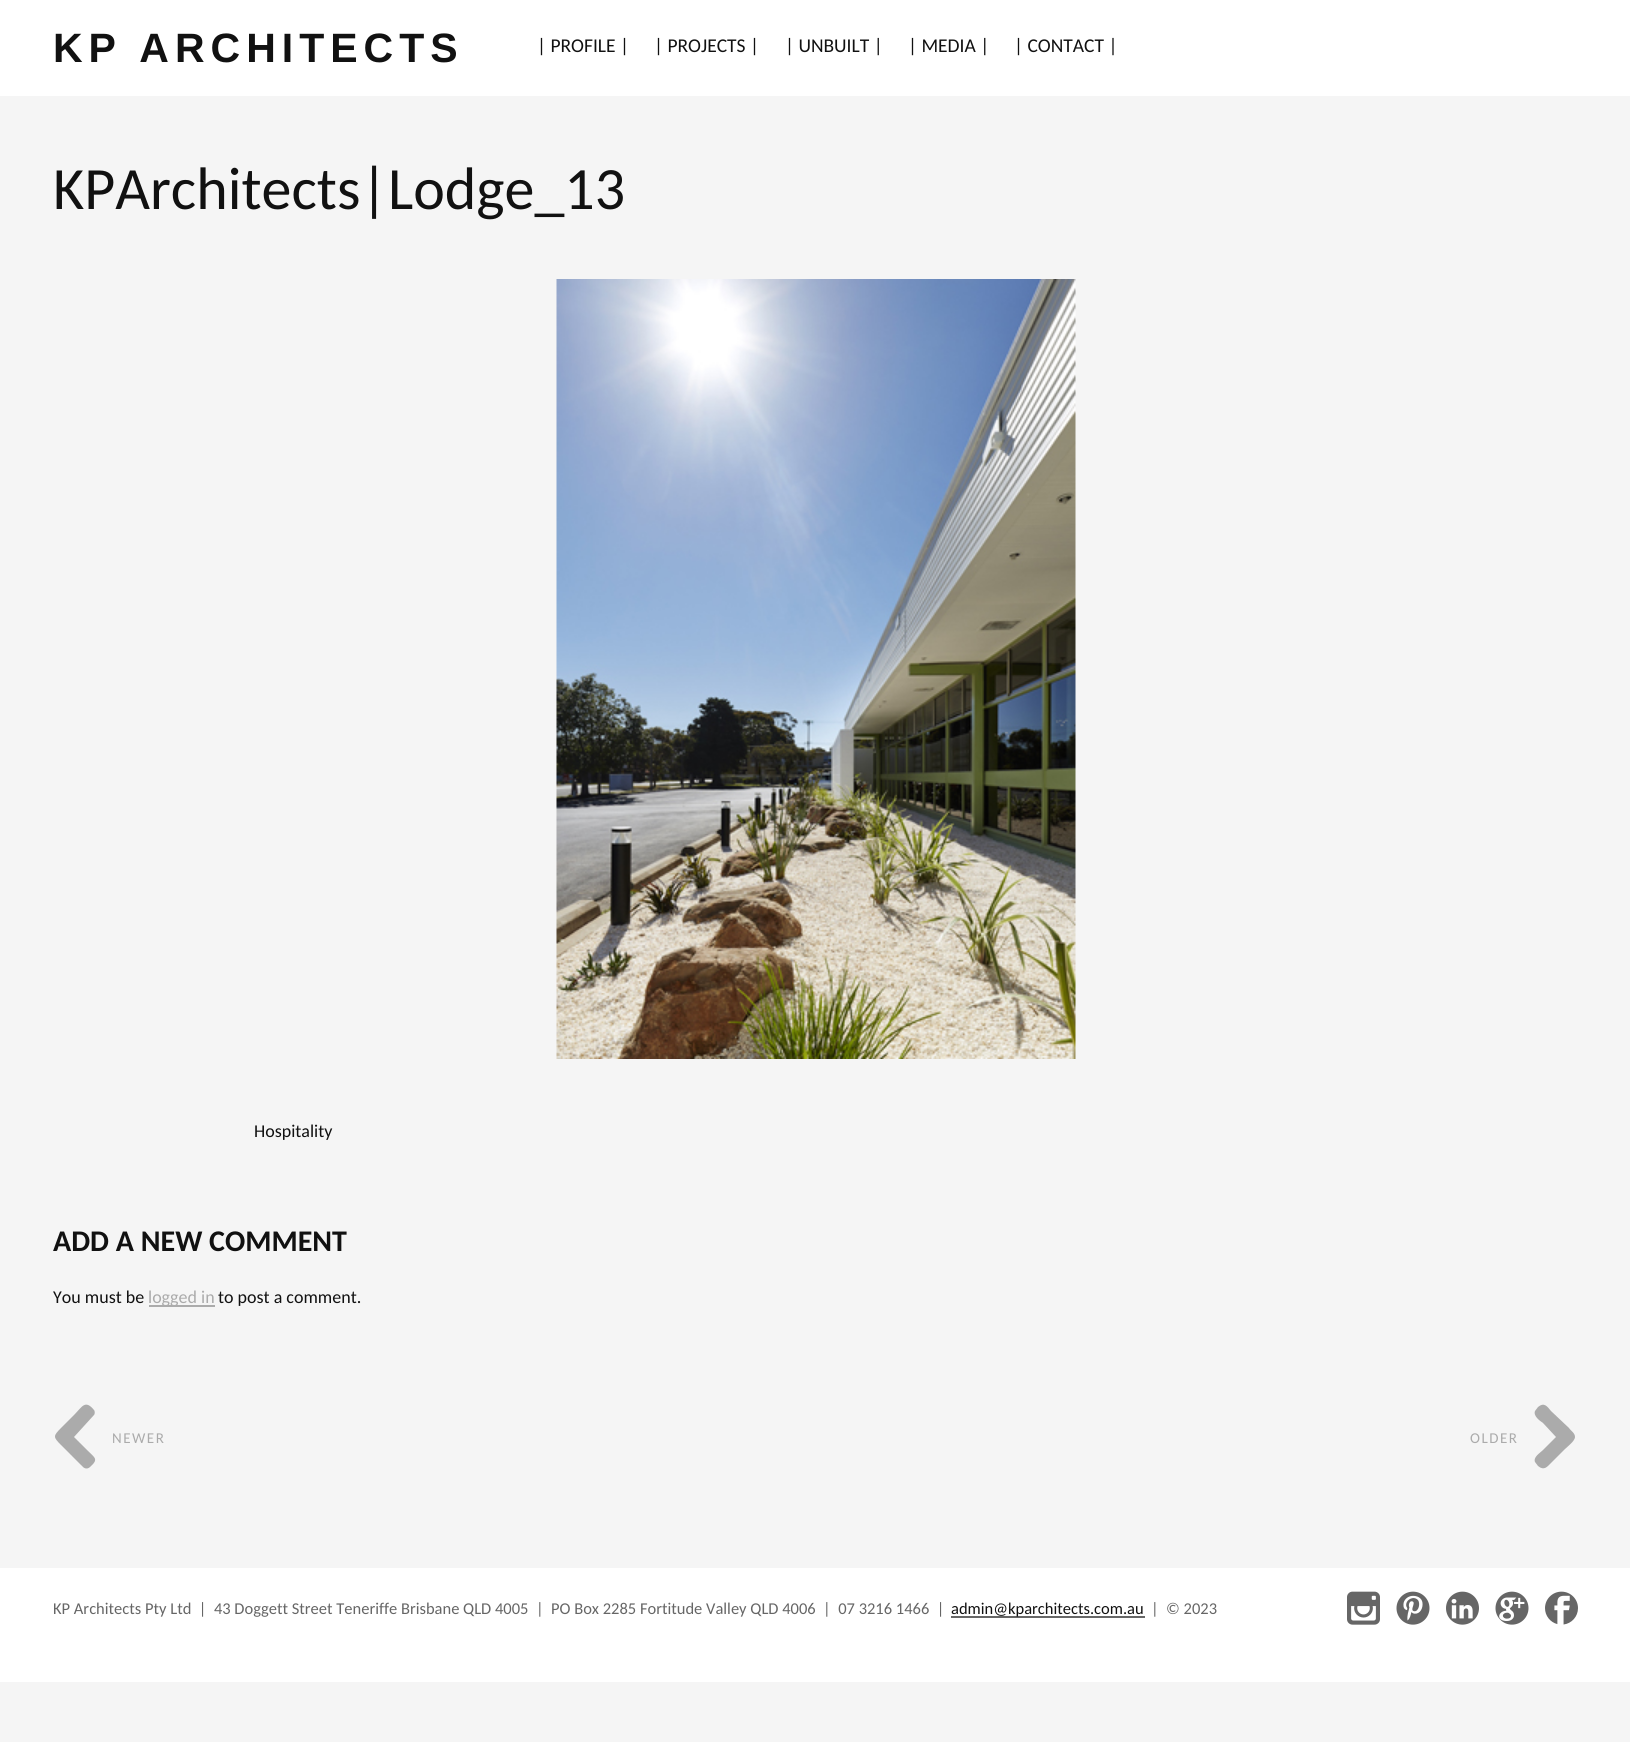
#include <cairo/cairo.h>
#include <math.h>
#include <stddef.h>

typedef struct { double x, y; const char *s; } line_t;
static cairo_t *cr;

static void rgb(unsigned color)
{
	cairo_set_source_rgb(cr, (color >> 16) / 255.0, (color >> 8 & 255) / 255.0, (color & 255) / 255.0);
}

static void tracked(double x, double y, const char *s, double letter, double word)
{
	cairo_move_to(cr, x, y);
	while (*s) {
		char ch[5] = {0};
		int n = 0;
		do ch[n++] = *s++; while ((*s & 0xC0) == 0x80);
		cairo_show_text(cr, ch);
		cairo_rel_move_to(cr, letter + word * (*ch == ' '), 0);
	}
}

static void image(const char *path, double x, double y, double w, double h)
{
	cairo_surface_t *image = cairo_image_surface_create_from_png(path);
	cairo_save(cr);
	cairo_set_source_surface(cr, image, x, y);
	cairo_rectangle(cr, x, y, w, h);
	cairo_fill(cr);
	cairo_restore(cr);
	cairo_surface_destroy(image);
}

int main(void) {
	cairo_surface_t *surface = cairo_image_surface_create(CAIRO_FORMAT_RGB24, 1630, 1742);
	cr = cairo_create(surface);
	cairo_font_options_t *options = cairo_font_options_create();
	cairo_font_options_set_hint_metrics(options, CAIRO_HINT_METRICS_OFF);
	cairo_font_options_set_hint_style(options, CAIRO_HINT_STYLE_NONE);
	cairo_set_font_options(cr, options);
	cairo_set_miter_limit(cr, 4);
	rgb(0xf5f5f5);
	cairo_paint(cr);
	rgb(0xffffff);
	cairo_rectangle(cr, 0, 0, 1630, 96);
	cairo_fill(cr);
	image("img/1.png", 556, 279, 520, 780);
	rgb(0xababab);
	cairo_rectangle(cr, 149, 1305, 66, 2);
	cairo_fill(cr);
	cairo_new_path(cr);
	cairo_move_to(cr, 83, 1467);
	cairo_line_to(cr, 61, 1445);
	cairo_curve_to(cr, 53, 1437, 53, 1436, 61, 1428);
	cairo_line_to(cr, 74, 1415);
	cairo_curve_to(cr, 82, 1407, 85, 1399, 94, 1410);
	cairo_curve_to(cr, 95, 1411, 95, 1414, 94, 1415);
	cairo_line_to(cr, 74, 1437);
	cairo_line_to(cr, 87, 1450);
	cairo_curve_to(cr, 95, 1458, 99, 1459, 90, 1467);
	cairo_curve_to(cr, 88, 1469, 85, 1469, 83, 1467);
	cairo_close_path(cr);
	cairo_fill(cr);
	cairo_new_path(cr);
	cairo_move_to(cr, 1575, 1437);
	cairo_curve_to(cr, 1575, 1441, 1567, 1447, 1565, 1449);
	cairo_line_to(cr, 1551, 1463);
	cairo_curve_to(cr, 1547, 1467, 1544, 1471, 1538, 1466);
	cairo_line_to(cr, 1535, 1462);
	cairo_curve_to(cr, 1533, 1457, 1540, 1453, 1543, 1450);
	cairo_line_to(cr, 1556, 1437);
	cairo_line_to(cr, 1543, 1423);
	cairo_curve_to(cr, 1540, 1421, 1533, 1416, 1535, 1411);
	cairo_line_to(cr, 1538, 1407);
	cairo_curve_to(cr, 1544, 1402, 1547, 1406, 1551, 1411);
	cairo_line_to(cr, 1569, 1428);
	cairo_curve_to(cr, 1571, 1431, 1575, 1433, 1575, 1437);
	cairo_close_path(cr);
	cairo_fill(cr);
	rgb(0xffffff);
	cairo_rectangle(cr, 0, 1568, 1630, 114);
	cairo_fill(cr);
	rgb(0x666666);
	cairo_rectangle(cr, 951, 1616, 194, 2);
	cairo_fill(cr);
	image("img/2.png", 1347, 1591, 33, 34);
	image("img/3.png", 1396, 1591, 34, 34);
	image("img/4.png", 1446, 1591, 33, 34);
	image("img/5.png", 1495, 1591, 34, 34);
	image("img/6.png", 1545, 1591, 33, 34);
	cairo_select_font_face(cr, "Liberation Sans", CAIRO_FONT_SLANT_NORMAL, CAIRO_FONT_WEIGHT_BOLD);
	cairo_set_font_size(cr, 41);
	rgb(0x111111);
	tracked(53, 62, "KP ARCHITECTS", 6, 0);
	cairo_select_font_face(cr, "Carlito", CAIRO_FONT_SLANT_NORMAL, CAIRO_FONT_WEIGHT_NORMAL);
	cairo_set_font_size(cr, 19.5);
	{
		static const line_t items[] = {
			{537, 52, "| PROFILE |"},
			{654, 52, "| PROJECTS |"},
			{785, 52, "| UNBUILT |"},
			{908, 52, "| MEDIA |"},
			{1014, 52, "| CONTACT |"},
		};
		for (size_t i = 0; i < sizeof items / sizeof *items; i++) {
			cairo_move_to(cr, items[i].x, items[i].y);
			cairo_show_text(cr, items[i].s);
		}
	}
	cairo_set_font_size(cr, 60);
	cairo_move_to(cr, 53, 209);
	cairo_show_text(cr, "KPArchitects|Lodge_13");
	cairo_set_font_size(cr, 18);
	cairo_move_to(cr, 254, 1137);
	cairo_show_text(cr, "Hospitality");
	cairo_select_font_face(cr, "Carlito", CAIRO_FONT_SLANT_NORMAL, CAIRO_FONT_WEIGHT_BOLD);
	cairo_set_font_size(cr, 30);
	cairo_move_to(cr, 53, 1251);
	cairo_show_text(cr, "ADD A NEW COMMENT");
	cairo_select_font_face(cr, "Carlito", CAIRO_FONT_SLANT_NORMAL, CAIRO_FONT_WEIGHT_NORMAL);
	cairo_set_font_size(cr, 18);
	cairo_move_to(cr, 53, 1303);
	cairo_show_text(cr, "You must be");
	rgb(0xababab);
	cairo_move_to(cr, 148, 1303);
	cairo_show_text(cr, "logged in");
	rgb(0x111111);
	cairo_move_to(cr, 218, 1303);
	cairo_show_text(cr, "to post a comment.");
	cairo_set_font_size(cr, 15);
	rgb(0xababab);
	tracked(112, 1443, "NEWER", 1.5, 0);
	tracked(1470, 1443, "OLDER", 1.5, 0);
	cairo_set_font_size(cr, 16.5);
	rgb(0x666666);
	cairo_move_to(cr, 53, 1614);
	cairo_show_text(cr, "KP Architects Pty Ltd  |  43 Doggett Street Teneriffe Brisbane QLD 4005  |  PO Box 2285 Fortitude Valley QLD 4006  |  07 3216 1466  |");
	rgb(0x111111);
	cairo_move_to(cr, 951, 1614);
	cairo_show_text(cr, "admin@kparchitects.com.au");
	rgb(0x666666);
	cairo_move_to(cr, 1151, 1614);
	cairo_show_text(cr, "|  © 2023");
	cairo_surface_write_to_png(surface, "page.png");
	cairo_font_options_destroy(options);
	cairo_destroy(cr);
	cairo_surface_destroy(surface);
	return 0;
}
